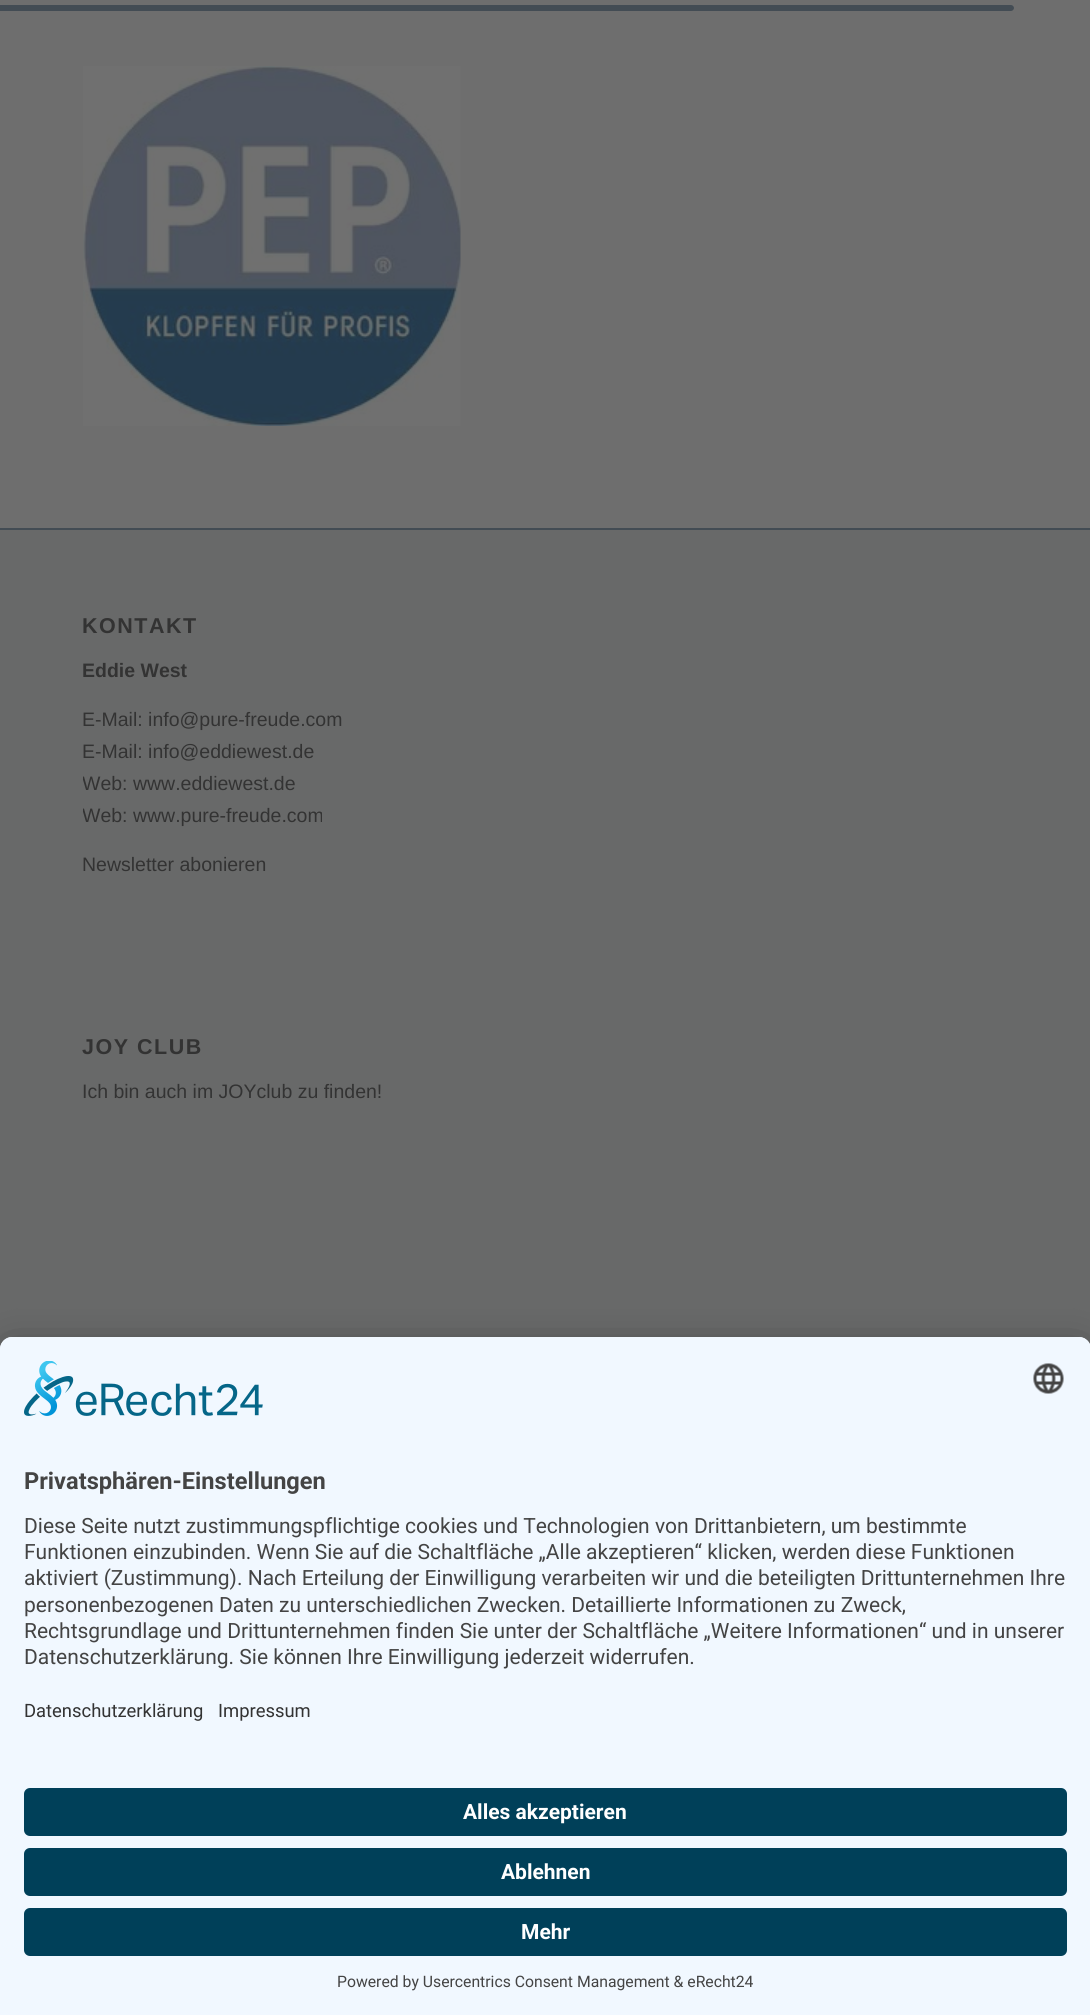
#include <cairo/cairo.h>
#include <math.h>
#include <stddef.h>

typedef struct { double x, y; const char *s; } line_t;
static cairo_t *cr;

static void rgb(unsigned color)
{
	cairo_set_source_rgb(cr, (color >> 16) / 255.0, (color >> 8 & 255) / 255.0, (color & 255) / 255.0);
}

static void tracked(double x, double y, const char *s, double letter, double word)
{
	cairo_move_to(cr, x, y);
	while (*s) {
		char ch[5] = {0};
		int n = 0;
		do ch[n++] = *s++; while ((*s & 0xC0) == 0x80);
		cairo_show_text(cr, ch);
		cairo_rel_move_to(cr, letter + word * (*ch == ' '), 0);
	}
}

static void rrect(double x, double y, double w, double h, double r)
{
	cairo_new_sub_path(cr);
	cairo_arc(cr, x + w - r, y + h - r, r, 0, M_PI / 2);
	cairo_arc(cr, x + r, y + h - r, r, M_PI / 2, M_PI);
	cairo_arc(cr, x + r, y + r, r, M_PI, 1.5 * M_PI);
	cairo_arc(cr, x + w - r, y + r, r, 1.5 * M_PI, 2 * M_PI);
	cairo_close_path(cr);
}

static void soft_shadow(double x, double y, double w, double h, double r, double blur, double alpha)
{
	cairo_push_group_with_content(cr, CAIRO_CONTENT_ALPHA);
	cairo_set_operator(cr, CAIRO_OPERATOR_SOURCE);
	for (int i = 15; i >= -15 && fmin(w, h) + blur * i / 3 > 0; i -= 2) {
		double e = blur * i / 6;
		cairo_set_source_rgba(cr, 0, 0, 0, alpha * erfc((i - 1) / 8.5) / 2);
		rrect(x - e, y - e, w + 2 * e, h + 2 * e, fmax(0, fmin(r + e + blur * .6, fmin(w, h) / 2 + e)));
		cairo_fill(cr);
	}
	cairo_pattern_t *soft = cairo_pop_group(cr);
	cairo_mask(cr, soft);
	cairo_pattern_destroy(soft);
}

static void image(const char *path, double x, double y, double w, double h)
{
	cairo_surface_t *image = cairo_image_surface_create_from_png(path);
	cairo_save(cr);
	cairo_set_source_surface(cr, image, x, y);
	cairo_rectangle(cr, x, y, w, h);
	cairo_fill(cr);
	cairo_restore(cr);
	cairo_surface_destroy(image);
}

int main(void) {
	cairo_surface_t *surface = cairo_image_surface_create(CAIRO_FORMAT_RGB24, 1090, 2015);
	cr = cairo_create(surface);
	cairo_font_options_t *options = cairo_font_options_create();
	cairo_font_options_set_hint_metrics(options, CAIRO_HINT_METRICS_OFF);
	cairo_font_options_set_hint_style(options, CAIRO_HINT_STYLE_NONE);
	cairo_set_font_options(cr, options);
	cairo_set_miter_limit(cr, 4);
	rgb(0x6e6e6e);
	cairo_paint(cr);
	rgb(0x434c54);
	cairo_new_path(cr);
	cairo_move_to(cr, 0, 5);
	cairo_line_to(cr, 1011, 5);
	cairo_curve_to(cr, 1012.5, 5, 1014, 6.5, 1014, 8);
	cairo_curve_to(cr, 1014, 9.5, 1012.5, 11, 1011, 11);
	cairo_line_to(cr, 0, 11);
	cairo_close_path(cr);
	cairo_fill(cr);
	image("img/1.png", 83, 66, 378, 360);
	rgb(0x686969);
	cairo_rectangle(cr, 0, 530, 1090, 819);
	cairo_fill(cr);
	rgb(0x434c54);
	cairo_rectangle(cr, 0, 528, 1090, 2);
	cairo_fill(cr);
	rgb(0x000000);
	soft_shadow(0, 1367, 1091, 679, 12, 21, 0.3);
	soft_shadow(0, 1344, 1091, 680, 12, 19.5, 0.22);
	rgb(0xf1f8ff);
	cairo_new_path(cr);
	cairo_move_to(cr, 12, 1337);
	cairo_line_to(cr, 1079, 1337);
	cairo_curve_to(cr, 1085.5, 1337, 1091, 1342.5, 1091, 1349);
	cairo_line_to(cr, 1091, 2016);
	cairo_line_to(cr, 0, 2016);
	cairo_line_to(cr, 0, 1349);
	cairo_curve_to(cr, 0, 1342.5, 5.5, 1337, 12, 1337);
	cairo_close_path(cr);
	cairo_fill(cr);
	cairo_new_path(cr);
	cairo_move_to(cr, 12, 1337);
	cairo_line_to(cr, 1079, 1337);
	cairo_curve_to(cr, 1085.5, 1337, 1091, 1342.5, 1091, 1349);
	cairo_line_to(cr, 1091, 1770);
	cairo_line_to(cr, 0, 1770);
	cairo_line_to(cr, 0, 1349);
	cairo_curve_to(cr, 0, 1342.5, 5.5, 1337, 12, 1337);
	cairo_close_path(cr);
	cairo_fill(cr);
	image("img/2.png", 24, 1361, 239, 55);
	image("img/3.png", 1033, 1363, 31, 31);
	rgb(0x004059);
	rrect(24, 1788, 1043, 48, 6);
	cairo_fill(cr);
	rrect(24, 1848, 1043, 48, 6);
	cairo_fill(cr);
	rrect(24, 1908, 1043, 48, 6);
	cairo_fill(cr);
	cairo_select_font_face(cr, "Liberation Sans", CAIRO_FONT_SLANT_NORMAL, CAIRO_FONT_WEIGHT_BOLD);
	cairo_set_font_size(cr, 21.5);
	rgb(0x333333);
	tracked(82, 633, "KONTAKT", 1.5, 0);
	cairo_set_font_size(cr, 19.5);
	cairo_move_to(cr, 82, 677);
	cairo_show_text(cr, "Eddie West");
	cairo_select_font_face(cr, "Liberation Sans", CAIRO_FONT_SLANT_NORMAL, CAIRO_FONT_WEIGHT_NORMAL);
	cairo_move_to(cr, 82, 726);
	cairo_show_text(cr, "E-Mail: info@pure-freude.com");
	cairo_move_to(cr, 82, 758);
	cairo_show_text(cr, "E-Mail: info@eddiewest.de");
	cairo_save(cr);
	cairo_rectangle(cr, 83, 597, 925, 300);
	cairo_clip(cr);
	cairo_move_to(cr, 82, 790);
	cairo_show_text(cr, "Web: www.eddiewest.de");
	cairo_move_to(cr, 82, 822);
	cairo_show_text(cr, "Web: www.pure-freude.com");
	cairo_restore(cr);
	cairo_move_to(cr, 82, 871);
	cairo_show_text(cr, "Newsletter abonieren");
	cairo_select_font_face(cr, "Liberation Sans", CAIRO_FONT_SLANT_NORMAL, CAIRO_FONT_WEIGHT_BOLD);
	cairo_set_font_size(cr, 21.5);
	tracked(82, 1054, "JOY CLUB", 1.5, 0);
	cairo_select_font_face(cr, "Liberation Sans", CAIRO_FONT_SLANT_NORMAL, CAIRO_FONT_WEIGHT_NORMAL);
	cairo_set_font_size(cr, 19.5);
	cairo_move_to(cr, 82, 1098);
	cairo_show_text(cr, "Ich bin auch im JOYclub zu finden!");
	cairo_select_font_face(cr, "Roboto", CAIRO_FONT_SLANT_NORMAL, CAIRO_FONT_WEIGHT_BOLD);
	cairo_set_font_size(cr, 23.6);
	rgb(0x444444);
	cairo_move_to(cr, 24, 1489);
	cairo_show_text(cr, "Privatsphären-Einstellungen");
	cairo_select_font_face(cr, "Roboto", CAIRO_FONT_SLANT_NORMAL, CAIRO_FONT_WEIGHT_NORMAL);
	cairo_set_font_size(cr, 21);
	{
		static const line_t items[] = {
			{24, 1533, "Diese Seite nutzt zustimmungspflichtige cookies und Technologien von Drittanbietern, um bestimmte"},
			{24, 1559, "Funktionen einzubinden. Wenn Sie auf die Schaltfläche „Alle akzeptieren“ klicken, werden diese Funktionen"},
			{24, 1585, "aktiviert (Zustimmung). Nach Erteilung der Einwilligung verarbeiten wir und die beteiligten Drittunternehmen Ihre"},
			{24, 1612, "personenbezogenen Daten zu unterschiedlichen Zwecken. Detaillierte Informationen zu Zweck,"},
			{24, 1638, "Rechtsgrundlage und Drittunternehmen finden Sie unter der Schaltfläche „Weitere Informationen“ und in unserer"},
			{24, 1664, "Datenschutzerklärung. Sie können Ihre Einwilligung jederzeit widerrufen."},
		};
		for (size_t i = 0; i < sizeof items / sizeof *items; i++) {
			cairo_move_to(cr, items[i].x, items[i].y);
			cairo_show_text(cr, items[i].s);
		}
	}
	cairo_set_font_size(cr, 18.4);
	rgb(0x333333);
	cairo_move_to(cr, 24, 1717);
	cairo_show_text(cr, "Datenschutzerklärung");
	cairo_move_to(cr, 218, 1717);
	cairo_show_text(cr, "Impressum");
	cairo_select_font_face(cr, "Roboto", CAIRO_FONT_SLANT_NORMAL, CAIRO_FONT_WEIGHT_BOLD);
	cairo_set_font_size(cr, 21);
	rgb(0xffffff);
	{
		static const line_t items[] = {
			{463, 1819, "Alles akzeptieren"},
			{501, 1879, "Ablehnen"},
			{521, 1939, "Mehr"},
		};
		for (size_t i = 0; i < sizeof items / sizeof *items; i++) {
			cairo_move_to(cr, items[i].x, items[i].y);
			cairo_show_text(cr, items[i].s);
		}
	}
	cairo_select_font_face(cr, "Roboto", CAIRO_FONT_SLANT_NORMAL, CAIRO_FONT_WEIGHT_NORMAL);
	cairo_set_font_size(cr, 15.75);
	rgb(0x444444);
	cairo_move_to(cr, 337, 1987);
	cairo_show_text(cr, "Powered by Usercentrics Consent Management & eRecht24");
	cairo_surface_write_to_png(surface, "page.png");
	cairo_font_options_destroy(options);
	cairo_destroy(cr);
	cairo_surface_destroy(surface);
	return 0;
}
